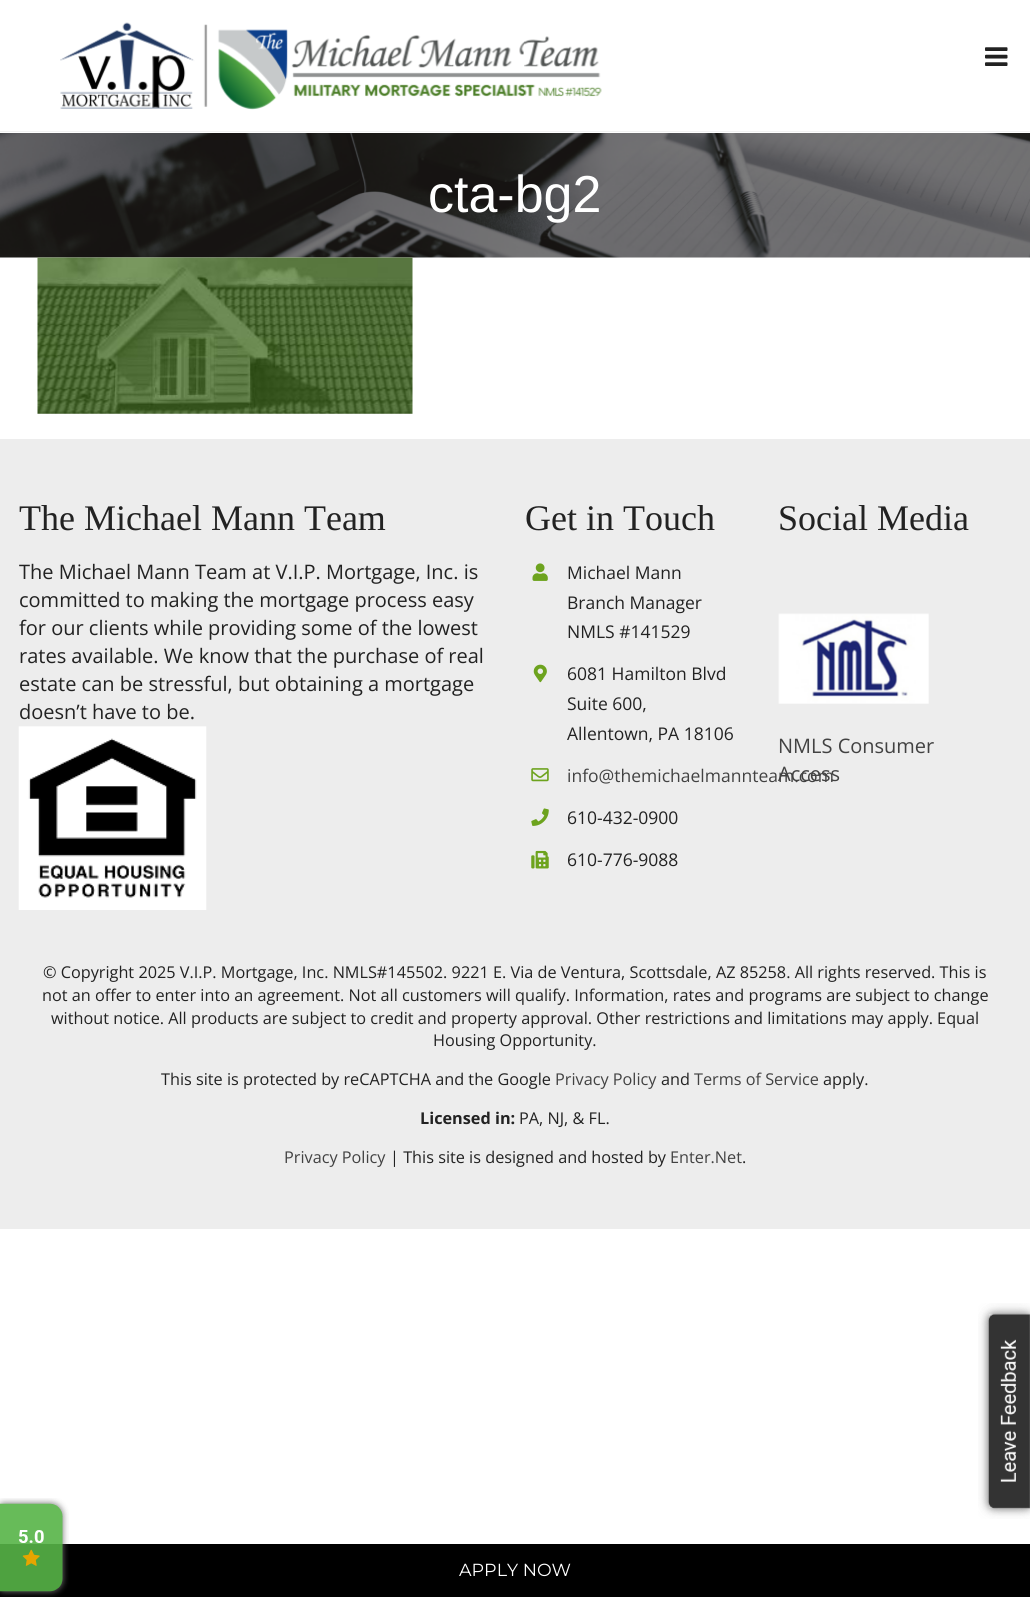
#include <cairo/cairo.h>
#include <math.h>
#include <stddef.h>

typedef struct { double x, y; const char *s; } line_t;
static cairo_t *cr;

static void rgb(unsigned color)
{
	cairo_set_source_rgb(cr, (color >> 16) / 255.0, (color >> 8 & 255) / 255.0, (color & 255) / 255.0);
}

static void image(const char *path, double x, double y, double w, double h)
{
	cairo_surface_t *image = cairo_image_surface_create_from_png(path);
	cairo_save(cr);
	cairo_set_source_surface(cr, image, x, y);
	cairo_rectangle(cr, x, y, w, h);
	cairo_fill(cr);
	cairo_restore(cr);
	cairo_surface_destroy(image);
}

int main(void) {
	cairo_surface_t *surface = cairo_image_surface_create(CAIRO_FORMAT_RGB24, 1030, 1597);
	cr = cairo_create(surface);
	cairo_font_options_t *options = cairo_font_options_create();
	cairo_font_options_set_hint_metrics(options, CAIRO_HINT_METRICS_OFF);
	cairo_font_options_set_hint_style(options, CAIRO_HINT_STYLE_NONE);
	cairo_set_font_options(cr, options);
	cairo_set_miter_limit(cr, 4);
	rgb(0xffffff);
	cairo_paint(cr);
	rgb(0xf2f2f2);
	cairo_rectangle(cr, 0, 131, 1030, 1);
	cairo_fill(cr);
	image("img/1.png", 60, 22, 542, 88);
	image("img/2.png", 985, 47, 23, 19);
	image("img/3.png", 0, 133, 1030, 125);
	image("img/4.png", 37, 257, 376, 157);
	rgb(0xededed);
	cairo_rectangle(cr, 0, 439, 1030, 790);
	cairo_fill(cr);
	image("img/5.png", 18, 726, 189, 184);
	image("img/6.png", 532, 563, 16, 18);
	image("img/7.png", 533, 664, 14, 19);
	image("img/8.png", 531, 768, 18, 14);
	image("img/9.png", 531, 808, 18, 18);
	image("img/10.png", 531, 850, 18, 19);
	image("img/11.png", 778, 613, 151, 91);
	image("img/12.png", 978, 1303, 52, 216);
	rgb(0x000000);
	cairo_rectangle(cr, 0, 1544, 1030, 53);
	cairo_fill(cr);
	image("img/13.png", 0, 1498, 69, 99);
	cairo_select_font_face(cr, "Liberation Sans", CAIRO_FONT_SLANT_NORMAL, CAIRO_FONT_WEIGHT_NORMAL);
	cairo_set_font_size(cr, 52);
	rgb(0xffffff);
	cairo_move_to(cr, 428, 212);
	cairo_show_text(cr, "cta-bg2");
	cairo_select_font_face(cr, "Liberation Serif", CAIRO_FONT_SLANT_NORMAL, CAIRO_FONT_WEIGHT_NORMAL);
	cairo_set_font_size(cr, 36);
	rgb(0x222222);
	cairo_move_to(cr, 19, 530);
	cairo_show_text(cr, "The Michael Mann Team");
	cairo_select_font_face(cr, "Open Sans", CAIRO_FONT_SLANT_NORMAL, CAIRO_FONT_WEIGHT_NORMAL);
	cairo_set_font_size(cr, 20);
	{
		static const line_t items[] = {
			{19, 579, "The Michael Mann Team at V.I.P. Mortgage, Inc. is"},
			{19, 607, "committed to making the mortgage process easy"},
			{19, 635, "for our clients while providing some of the lowest"},
			{19, 663, "rates available. We know that the purchase of real"},
			{19, 691, "estate can be stressful, but obtaining a mortgage"},
			{19, 719, "doesn’t have to be."},
		};
		for (size_t i = 0; i < sizeof items / sizeof *items; i++) {
			cairo_move_to(cr, items[i].x, items[i].y);
			cairo_show_text(cr, items[i].s);
		}
	}
	cairo_select_font_face(cr, "Liberation Serif", CAIRO_FONT_SLANT_NORMAL, CAIRO_FONT_WEIGHT_NORMAL);
	cairo_set_font_size(cr, 36);
	cairo_move_to(cr, 525, 530);
	cairo_show_text(cr, "Get in Touch");
	cairo_select_font_face(cr, "Open Sans", CAIRO_FONT_SLANT_NORMAL, CAIRO_FONT_WEIGHT_NORMAL);
	cairo_set_font_size(cr, 17.5);
	{
		static const line_t items[] = {
			{567, 579, "Michael Mann"},
			{567, 609, "Branch Manager"},
			{567, 638, "NMLS #141529"},
			{567, 680, "6081 Hamilton Blvd"},
			{567, 710, "Suite 600,"},
			{567, 740, "Allentown, PA 18106"},
		};
		for (size_t i = 0; i < sizeof items / sizeof *items; i++) {
			cairo_move_to(cr, items[i].x, items[i].y);
			cairo_show_text(cr, items[i].s);
		}
	}
	rgb(0x424242);
	cairo_move_to(cr, 567, 782);
	cairo_show_text(cr, "info@themichaelmannteam.com");
	rgb(0x222222);
	cairo_move_to(cr, 567, 824);
	cairo_show_text(cr, "610-432-0900");
	cairo_move_to(cr, 567, 866);
	cairo_show_text(cr, "610-776-9088");
	cairo_select_font_face(cr, "Liberation Serif", CAIRO_FONT_SLANT_NORMAL, CAIRO_FONT_WEIGHT_NORMAL);
	cairo_set_font_size(cr, 36);
	cairo_move_to(cr, 778, 530);
	cairo_show_text(cr, "Social Media");
	cairo_select_font_face(cr, "Open Sans", CAIRO_FONT_SLANT_NORMAL, CAIRO_FONT_WEIGHT_NORMAL);
	cairo_set_font_size(cr, 20);
	rgb(0x424242);
	cairo_move_to(cr, 778, 753);
	cairo_show_text(cr, "NMLS Consumer");
	cairo_move_to(cr, 778, 781);
	cairo_show_text(cr, "Access");
	cairo_set_font_size(cr, 16.25);
	rgb(0x222222);
	{
		static const line_t items[] = {
			{43, 978, "© Copyright 2025 V.I.P. Mortgage, Inc. NMLS#145502. 9221 E. Via de Ventura, Scottsdale, AZ 85258. All rights reserved. This is"},
			{42, 1001, "not an offer to enter into an agreement. Not all customers will qualify. Information, rates and programs are subject to change"},
			{51, 1024, "without notice. All products are subject to credit and property approval. Other restrictions and limitations may apply. Equal"},
			{433, 1046, "Housing Opportunity."},
			{161, 1085, "This site is protected by reCAPTCHA and the Google"},
		};
		for (size_t i = 0; i < sizeof items / sizeof *items; i++) {
			cairo_move_to(cr, items[i].x, items[i].y);
			cairo_show_text(cr, items[i].s);
		}
	}
	rgb(0x424242);
	cairo_move_to(cr, 555, 1085);
	cairo_show_text(cr, "Privacy Policy");
	rgb(0x222222);
	cairo_move_to(cr, 661, 1085);
	cairo_show_text(cr, "and");
	rgb(0x424242);
	cairo_move_to(cr, 694, 1085);
	cairo_show_text(cr, "Terms of Service");
	rgb(0x222222);
	cairo_move_to(cr, 823, 1085);
	cairo_show_text(cr, "apply.");
	cairo_select_font_face(cr, "Open Sans", CAIRO_FONT_SLANT_NORMAL, CAIRO_FONT_WEIGHT_BOLD);
	cairo_move_to(cr, 420, 1124);
	cairo_show_text(cr, "Licensed in:");
	cairo_select_font_face(cr, "Open Sans", CAIRO_FONT_SLANT_NORMAL, CAIRO_FONT_WEIGHT_NORMAL);
	cairo_move_to(cr, 519, 1124);
	cairo_show_text(cr, "PA, NJ, & FL.");
	rgb(0x424242);
	cairo_move_to(cr, 284, 1163);
	cairo_show_text(cr, "Privacy Policy");
	rgb(0x222222);
	cairo_move_to(cr, 390, 1163);
	cairo_show_text(cr, "| This site is designed and hosted by");
	rgb(0x424242);
	cairo_move_to(cr, 670, 1163);
	cairo_show_text(cr, "Enter.Net");
	rgb(0x222222);
	cairo_move_to(cr, 742, 1163);
	cairo_show_text(cr, ".");
	cairo_select_font_face(cr, "Montserrat Thin", CAIRO_FONT_SLANT_NORMAL, CAIRO_FONT_WEIGHT_NORMAL);
	cairo_set_font_size(cr, 17.5);
	rgb(0xffffff);
	cairo_move_to(cr, 459, 1576);
	cairo_show_text(cr, "APPLY NOW");
	cairo_surface_write_to_png(surface, "page.png");
	cairo_font_options_destroy(options);
	cairo_destroy(cr);
	cairo_surface_destroy(surface);
	return 0;
}
